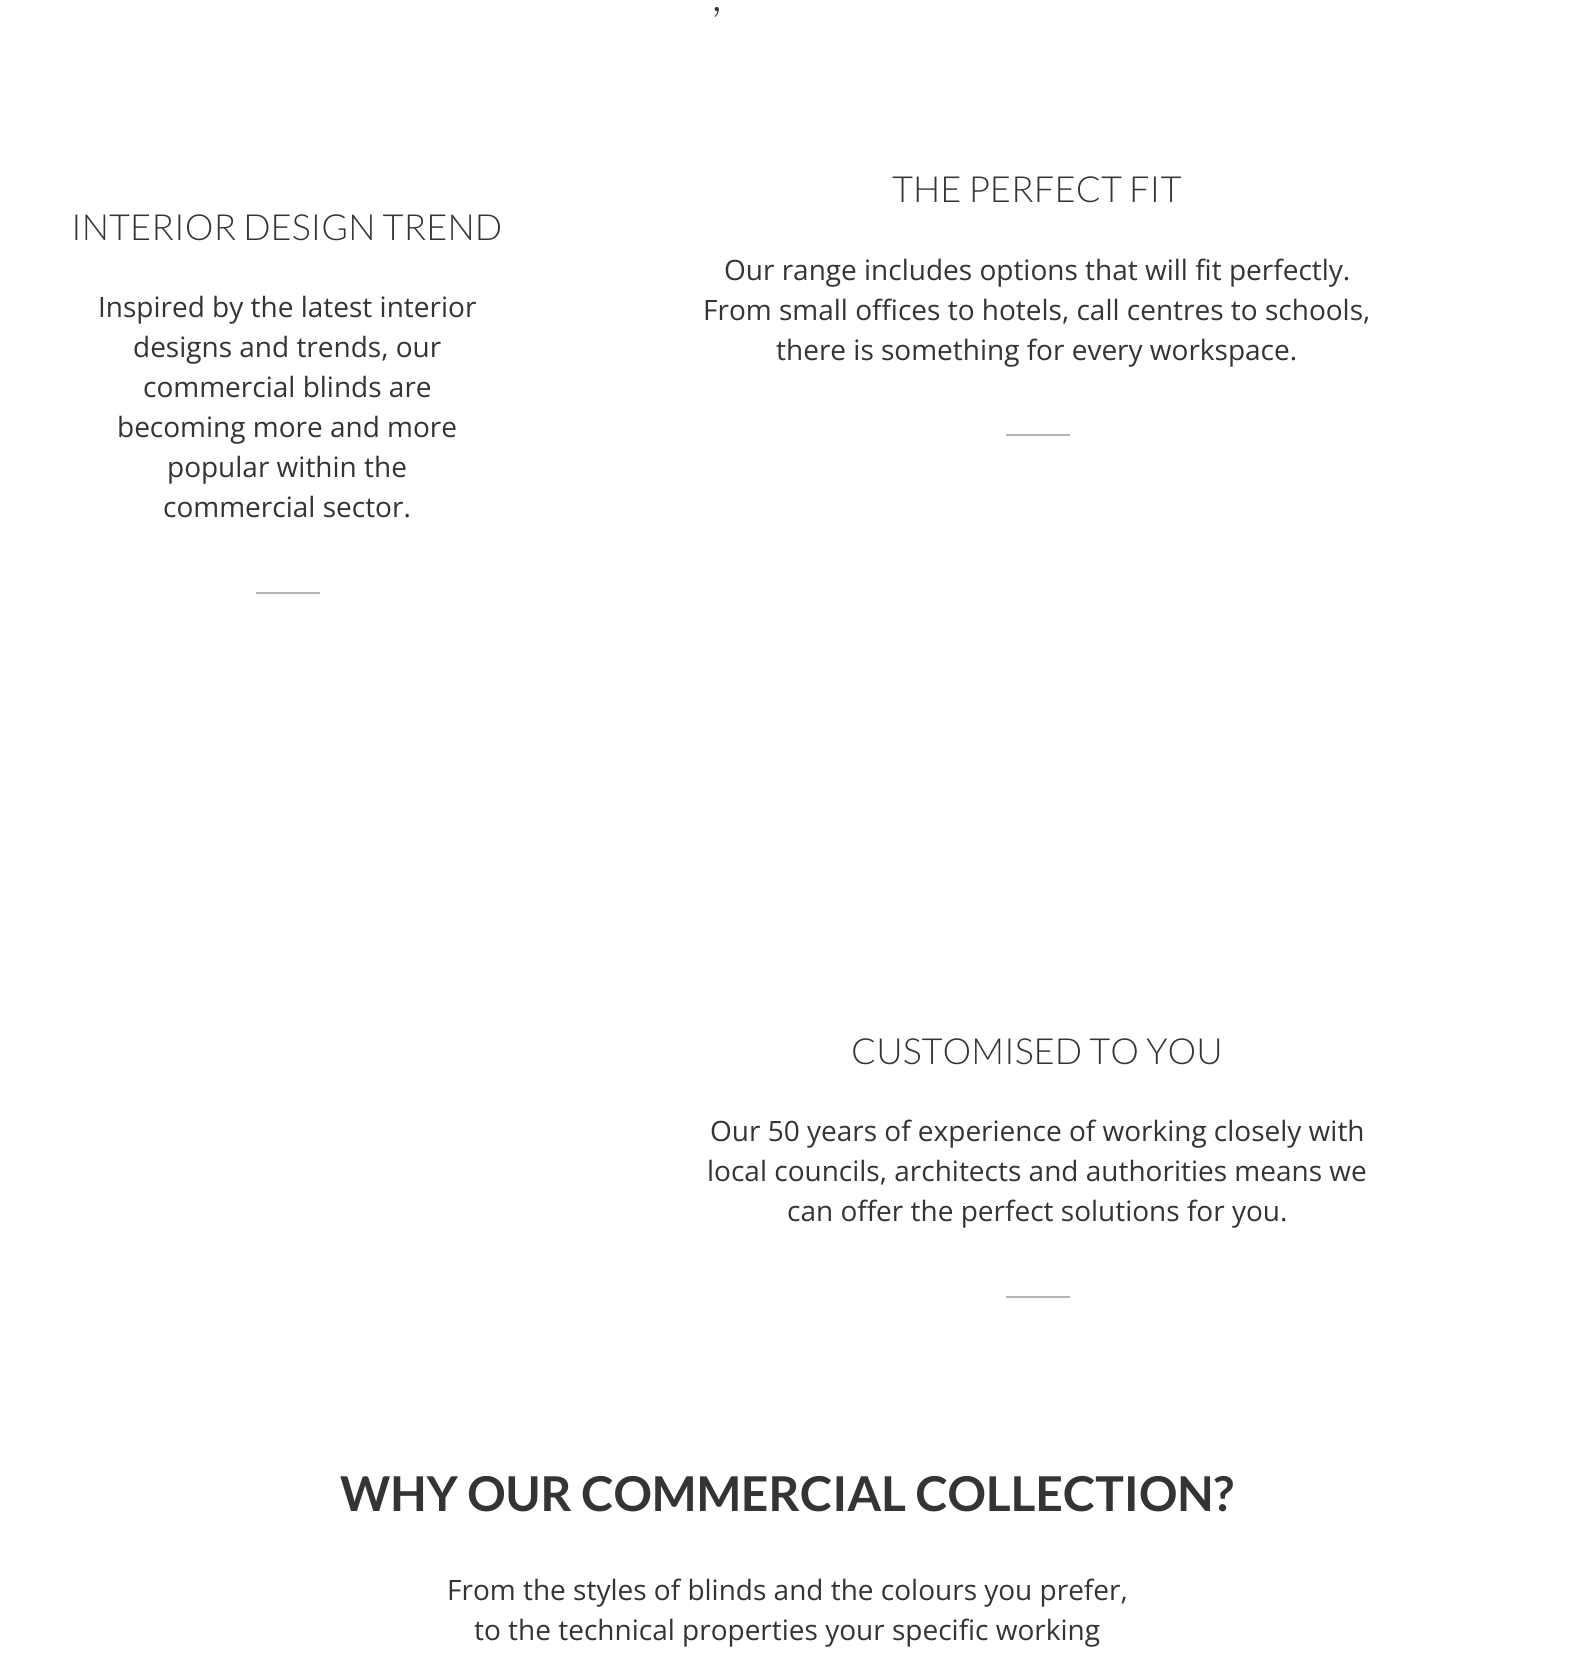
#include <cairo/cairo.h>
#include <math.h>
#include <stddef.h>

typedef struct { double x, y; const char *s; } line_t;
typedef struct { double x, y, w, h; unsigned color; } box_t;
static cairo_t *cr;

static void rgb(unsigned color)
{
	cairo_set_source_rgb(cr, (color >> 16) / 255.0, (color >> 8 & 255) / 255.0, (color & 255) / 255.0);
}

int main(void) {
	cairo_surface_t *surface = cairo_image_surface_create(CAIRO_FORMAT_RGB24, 1573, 1663);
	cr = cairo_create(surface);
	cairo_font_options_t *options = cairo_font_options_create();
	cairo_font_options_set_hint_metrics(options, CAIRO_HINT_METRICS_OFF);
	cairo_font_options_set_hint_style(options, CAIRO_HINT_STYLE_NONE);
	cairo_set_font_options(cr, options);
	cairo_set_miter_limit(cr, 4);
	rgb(0xffffff);
	cairo_paint(cr);
	{
		static const box_t items[] = {
			{256, 592, 64, 2, 0xb5b5b5},
			{1006, 434, 64, 2, 0xb5b5b5},
			{1006, 1296, 64, 2, 0xb5b5b5},
		};
		for (size_t i = 0; i < sizeof items / sizeof *items; i++) {
			rgb(items[i].color);
			cairo_rectangle(cr, items[i].x, items[i].y, items[i].w, items[i].h);
			cairo_fill(cr);
		}
	}
	cairo_select_font_face(cr, "Lato Light", CAIRO_FONT_SLANT_NORMAL, CAIRO_FONT_WEIGHT_NORMAL);
	cairo_set_font_size(cr, 48);
	rgb(0x343434);
	cairo_move_to(cr, 712, 11);
	cairo_show_text(cr, ",");
	cairo_set_font_size(cr, 36);
	cairo_move_to(cr, 71, 240);
	cairo_show_text(cr, "INTERIOR DESIGN TREND");
	cairo_select_font_face(cr, "Open Sans", CAIRO_FONT_SLANT_NORMAL, CAIRO_FONT_WEIGHT_NORMAL);
	cairo_set_font_size(cr, 28);
	{
		static const line_t items[] = {
			{98, 317, "Inspired by the latest interior"},
			{133, 357, "designs and trends, our"},
			{143, 397, "commercial blinds are"},
			{117, 437, "becoming more and more"},
			{167, 477, "popular within the"},
			{163, 517, "commercial sector."},
		};
		for (size_t i = 0; i < sizeof items / sizeof *items; i++) {
			cairo_move_to(cr, items[i].x, items[i].y);
			cairo_show_text(cr, items[i].s);
		}
	}
	cairo_select_font_face(cr, "Lato Light", CAIRO_FONT_SLANT_NORMAL, CAIRO_FONT_WEIGHT_NORMAL);
	cairo_set_font_size(cr, 36);
	cairo_move_to(cr, 892, 202);
	cairo_show_text(cr, "THE PERFECT FIT");
	cairo_select_font_face(cr, "Open Sans", CAIRO_FONT_SLANT_NORMAL, CAIRO_FONT_WEIGHT_NORMAL);
	cairo_set_font_size(cr, 28);
	{
		static const line_t items[] = {
			{724, 280, "Our range includes options that will fit perfectly."},
			{703, 320, "From small offices to hotels, call centres to schools,"},
			{776, 360, "there is something for every workspace."},
		};
		for (size_t i = 0; i < sizeof items / sizeof *items; i++) {
			cairo_move_to(cr, items[i].x, items[i].y);
			cairo_show_text(cr, items[i].s);
		}
	}
	cairo_select_font_face(cr, "Lato Light", CAIRO_FONT_SLANT_NORMAL, CAIRO_FONT_WEIGHT_NORMAL);
	cairo_set_font_size(cr, 36);
	cairo_move_to(cr, 851, 1064);
	cairo_show_text(cr, "CUSTOMISED TO YOU");
	cairo_select_font_face(cr, "Open Sans", CAIRO_FONT_SLANT_NORMAL, CAIRO_FONT_WEIGHT_NORMAL);
	cairo_set_font_size(cr, 28);
	{
		static const line_t items[] = {
			{710, 1141, "Our 50 years of experience of working closely with"},
			{707, 1181, "local councils, architects and authorities means we"},
			{787, 1221, "can offer the perfect solutions for you."},
		};
		for (size_t i = 0; i < sizeof items / sizeof *items; i++) {
			cairo_move_to(cr, items[i].x, items[i].y);
			cairo_show_text(cr, items[i].s);
		}
	}
	cairo_select_font_face(cr, "Lato", CAIRO_FONT_SLANT_NORMAL, CAIRO_FONT_WEIGHT_BOLD);
	cairo_set_font_size(cr, 48);
	cairo_move_to(cr, 340, 1511);
	cairo_show_text(cr, "WHY OUR COMMERCIAL COLLECTION?");
	cairo_select_font_face(cr, "Open Sans", CAIRO_FONT_SLANT_NORMAL, CAIRO_FONT_WEIGHT_NORMAL);
	cairo_set_font_size(cr, 28);
	cairo_move_to(cr, 447, 1600);
	cairo_show_text(cr, "From the styles of blinds and the colours you prefer,");
	cairo_move_to(cr, 474, 1640);
	cairo_show_text(cr, "to the technical properties your specific working");
	cairo_surface_write_to_png(surface, "page.png");
	cairo_font_options_destroy(options);
	cairo_destroy(cr);
	cairo_surface_destroy(surface);
	return 0;
}
